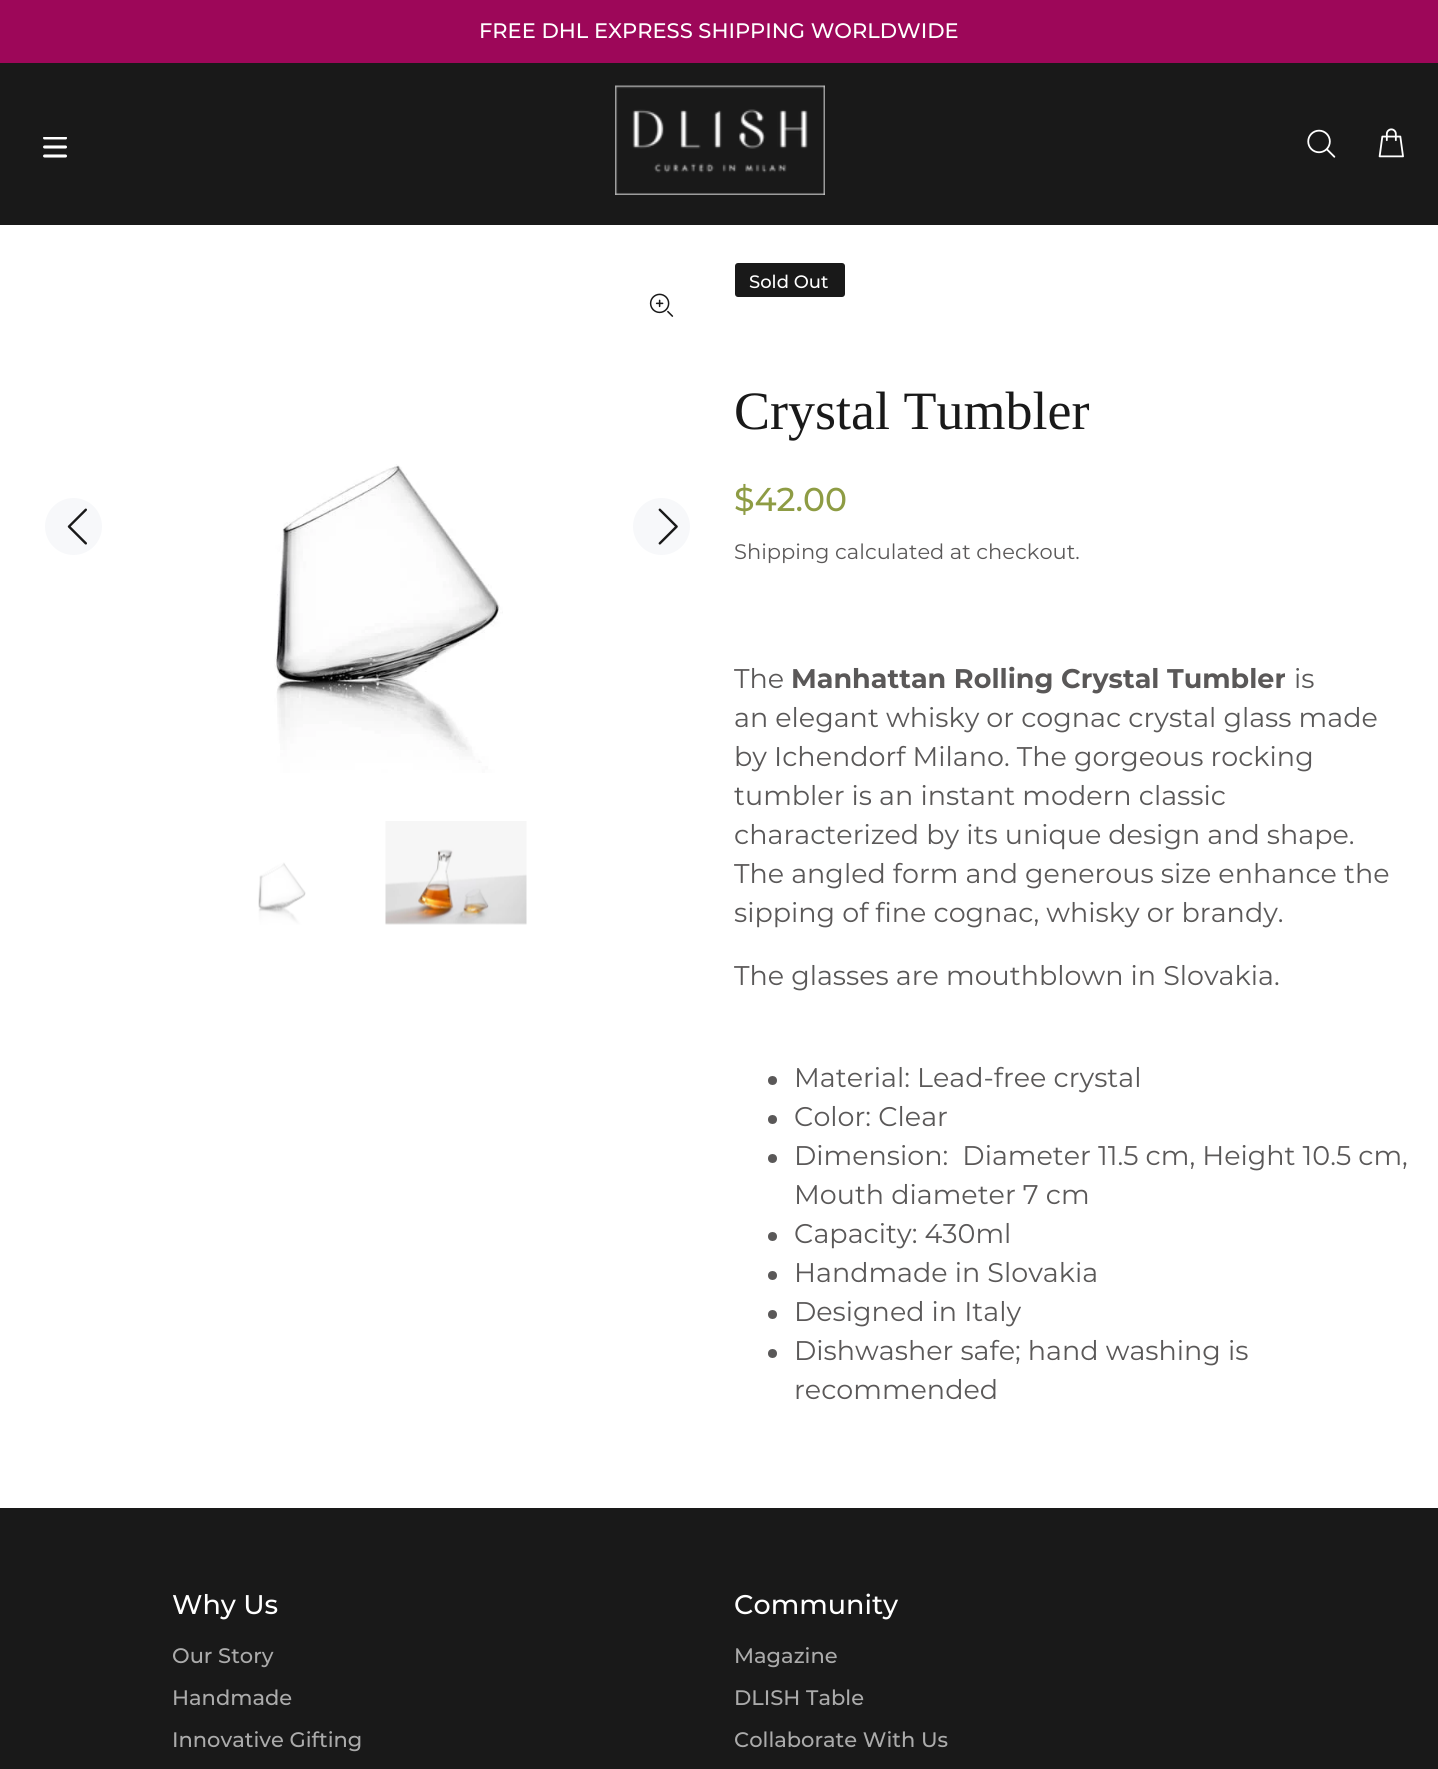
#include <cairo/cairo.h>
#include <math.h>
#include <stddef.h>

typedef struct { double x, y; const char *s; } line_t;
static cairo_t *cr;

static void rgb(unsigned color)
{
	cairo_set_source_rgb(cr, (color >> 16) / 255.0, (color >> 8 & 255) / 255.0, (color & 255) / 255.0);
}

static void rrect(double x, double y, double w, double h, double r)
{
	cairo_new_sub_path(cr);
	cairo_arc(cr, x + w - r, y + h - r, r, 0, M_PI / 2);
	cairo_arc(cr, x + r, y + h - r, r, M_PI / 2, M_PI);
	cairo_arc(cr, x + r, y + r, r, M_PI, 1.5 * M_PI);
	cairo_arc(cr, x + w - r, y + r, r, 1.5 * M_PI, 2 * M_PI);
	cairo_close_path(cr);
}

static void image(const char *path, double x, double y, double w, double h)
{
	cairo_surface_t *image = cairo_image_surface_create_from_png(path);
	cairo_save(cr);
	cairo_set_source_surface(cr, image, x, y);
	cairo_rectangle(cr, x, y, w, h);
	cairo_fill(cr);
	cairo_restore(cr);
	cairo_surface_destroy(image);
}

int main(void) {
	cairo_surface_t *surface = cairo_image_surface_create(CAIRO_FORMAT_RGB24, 1438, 1769);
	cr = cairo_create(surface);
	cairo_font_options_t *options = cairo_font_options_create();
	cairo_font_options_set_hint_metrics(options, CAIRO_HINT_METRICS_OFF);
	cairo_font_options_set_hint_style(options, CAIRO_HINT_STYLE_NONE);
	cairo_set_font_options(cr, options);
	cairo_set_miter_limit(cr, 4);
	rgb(0xffffff);
	cairo_paint(cr);
	rgb(0x9d0759);
	cairo_rectangle(cr, 0, 0, 1438, 63);
	cairo_fill(cr);
	rgb(0x191919);
	cairo_rectangle(cr, 0, 63, 1438, 162);
	cairo_fill(cr);
	image("img/1.png", 43, 137, 24, 21);
	image("img/2.png", 615, 85, 210, 110);
	image("img/3.png", 1307, 129, 29, 29);
	image("img/4.png", 1378, 128, 26, 30);
	image("img/5.png", 649, 293, 25, 24);
	image("img/6.png", 274, 464, 229, 309);
	rgb(0xf7f8fa);
	cairo_arc(cr, 73.5, 526.5, 28.5, 0, 2 * M_PI);
	cairo_fill(cr);
	image("img/7.png", 67, 508, 20, 37);
	cairo_arc(cr, 661.5, 526.5, 28.5, 0, 2 * M_PI);
	cairo_fill(cr);
	image("img/8.png", 658, 508, 20, 37);
	image("img/9.png", 258, 862, 48, 63);
	image("img/10.png", 385, 821, 142, 104);
	rgb(0x191919);
	rrect(735, 263, 110, 34, 3);
	cairo_fill(cr);
	rgb(0x5a5858);
	cairo_arc(cr, 772.5, 1080.5, 4.5, 0, 2 * M_PI);
	cairo_fill(cr);
	cairo_arc(cr, 772.5, 1119.5, 4.5, 0, 2 * M_PI);
	cairo_fill(cr);
	cairo_arc(cr, 772.5, 1158.5, 4.5, 0, 2 * M_PI);
	cairo_fill(cr);
	cairo_arc(cr, 772.5, 1236.5, 4.5, 0, 2 * M_PI);
	cairo_fill(cr);
	cairo_arc(cr, 772.5, 1275.5, 4.5, 0, 2 * M_PI);
	cairo_fill(cr);
	cairo_arc(cr, 772.5, 1314.5, 4.5, 0, 2 * M_PI);
	cairo_fill(cr);
	cairo_arc(cr, 772.5, 1353.5, 4.5, 0, 2 * M_PI);
	cairo_fill(cr);
	rgb(0x191919);
	cairo_rectangle(cr, 0, 1508, 1438, 261);
	cairo_fill(cr);
	cairo_select_font_face(cr, "Montserrat Medium", CAIRO_FONT_SLANT_NORMAL, CAIRO_FONT_WEIGHT_NORMAL);
	cairo_set_font_size(cr, 21);
	rgb(0xffffff);
	cairo_move_to(cr, 479, 38);
	cairo_show_text(cr, "FREE DHL EXPRESS SHIPPING WORLDWIDE");
	cairo_set_font_size(cr, 18);
	cairo_move_to(cr, 749, 288);
	cairo_show_text(cr, "Sold Out");
	cairo_select_font_face(cr, "Liberation Serif", CAIRO_FONT_SLANT_NORMAL, CAIRO_FONT_WEIGHT_NORMAL);
	cairo_set_font_size(cr, 54);
	rgb(0x191919);
	cairo_move_to(cr, 734, 429);
	cairo_show_text(cr, "Crystal Tumbler");
	cairo_select_font_face(cr, "Montserrat Medium", CAIRO_FONT_SLANT_NORMAL, CAIRO_FONT_WEIGHT_NORMAL);
	cairo_set_font_size(cr, 33);
	rgb(0x8e9c44);
	cairo_move_to(cr, 734, 511);
	cairo_show_text(cr, "$42.00");
	cairo_select_font_face(cr, "Montserrat", CAIRO_FONT_SLANT_NORMAL, CAIRO_FONT_WEIGHT_NORMAL);
	cairo_set_font_size(cr, 21);
	rgb(0x5a5858);
	cairo_move_to(cr, 734, 559);
	cairo_show_text(cr, "Shipping calculated at checkout.");
	cairo_set_font_size(cr, 27);
	cairo_move_to(cr, 734, 688);
	cairo_show_text(cr, "The");
	cairo_select_font_face(cr, "Montserrat", CAIRO_FONT_SLANT_NORMAL, CAIRO_FONT_WEIGHT_BOLD);
	cairo_move_to(cr, 791, 688);
	cairo_show_text(cr, "Manhattan Rolling Crystal Tumbler");
	cairo_select_font_face(cr, "Montserrat", CAIRO_FONT_SLANT_NORMAL, CAIRO_FONT_WEIGHT_NORMAL);
	{
		static const line_t items[] = {
			{1294, 688, "is"},
			{734, 727, "an elegant whisky or cognac crystal glass made"},
			{734, 766, "by Ichendorf Milano. The gorgeous rocking"},
			{734, 805, "tumbler is an instant modern classic"},
			{734, 844, "characterized by its unique design and shape."},
			{734, 883, "The angled form and generous size enhance the"},
			{734, 922, "sipping of fine cognac, whisky or brandy."},
			{734, 985, "The glasses are mouthblown in Slovakia."},
			{794, 1087, "Material: Lead-free crystal"},
			{794, 1126, "Color: Clear"},
			{794, 1165, "Dimension:  Diameter 11.5 cm, Height 10.5 cm,"},
			{794, 1204, "Mouth diameter 7 cm"},
			{794, 1243, "Capacity: 430ml"},
			{794, 1282, "Handmade in Slovakia"},
			{794, 1321, "Designed in Italy"},
			{794, 1360, "Dishwasher safe; hand washing is"},
			{794, 1399, "recommended"},
		};
		for (size_t i = 0; i < sizeof items / sizeof *items; i++) {
			cairo_move_to(cr, items[i].x, items[i].y);
			cairo_show_text(cr, items[i].s);
		}
	}
	cairo_select_font_face(cr, "Montserrat Medium", CAIRO_FONT_SLANT_NORMAL, CAIRO_FONT_WEIGHT_NORMAL);
	rgb(0xffffff);
	cairo_move_to(cr, 172, 1614);
	cairo_show_text(cr, "Why Us");
	cairo_set_font_size(cr, 21);
	rgb(0xababab);
	{
		static const line_t items[] = {
			{172, 1663, "Our Story"},
			{172, 1705, "Handmade"},
			{172, 1747, "Innovative Gifting"},
		};
		for (size_t i = 0; i < sizeof items / sizeof *items; i++) {
			cairo_move_to(cr, items[i].x, items[i].y);
			cairo_show_text(cr, items[i].s);
		}
	}
	cairo_set_font_size(cr, 27);
	rgb(0xffffff);
	cairo_move_to(cr, 734, 1614);
	cairo_show_text(cr, "Community");
	cairo_set_font_size(cr, 21);
	rgb(0xababab);
	{
		static const line_t items[] = {
			{734, 1663, "Magazine"},
			{734, 1705, "DLISH Table"},
			{734, 1747, "Collaborate With Us"},
		};
		for (size_t i = 0; i < sizeof items / sizeof *items; i++) {
			cairo_move_to(cr, items[i].x, items[i].y);
			cairo_show_text(cr, items[i].s);
		}
	}
	cairo_surface_write_to_png(surface, "page.png");
	cairo_font_options_destroy(options);
	cairo_destroy(cr);
	cairo_surface_destroy(surface);
	return 0;
}
